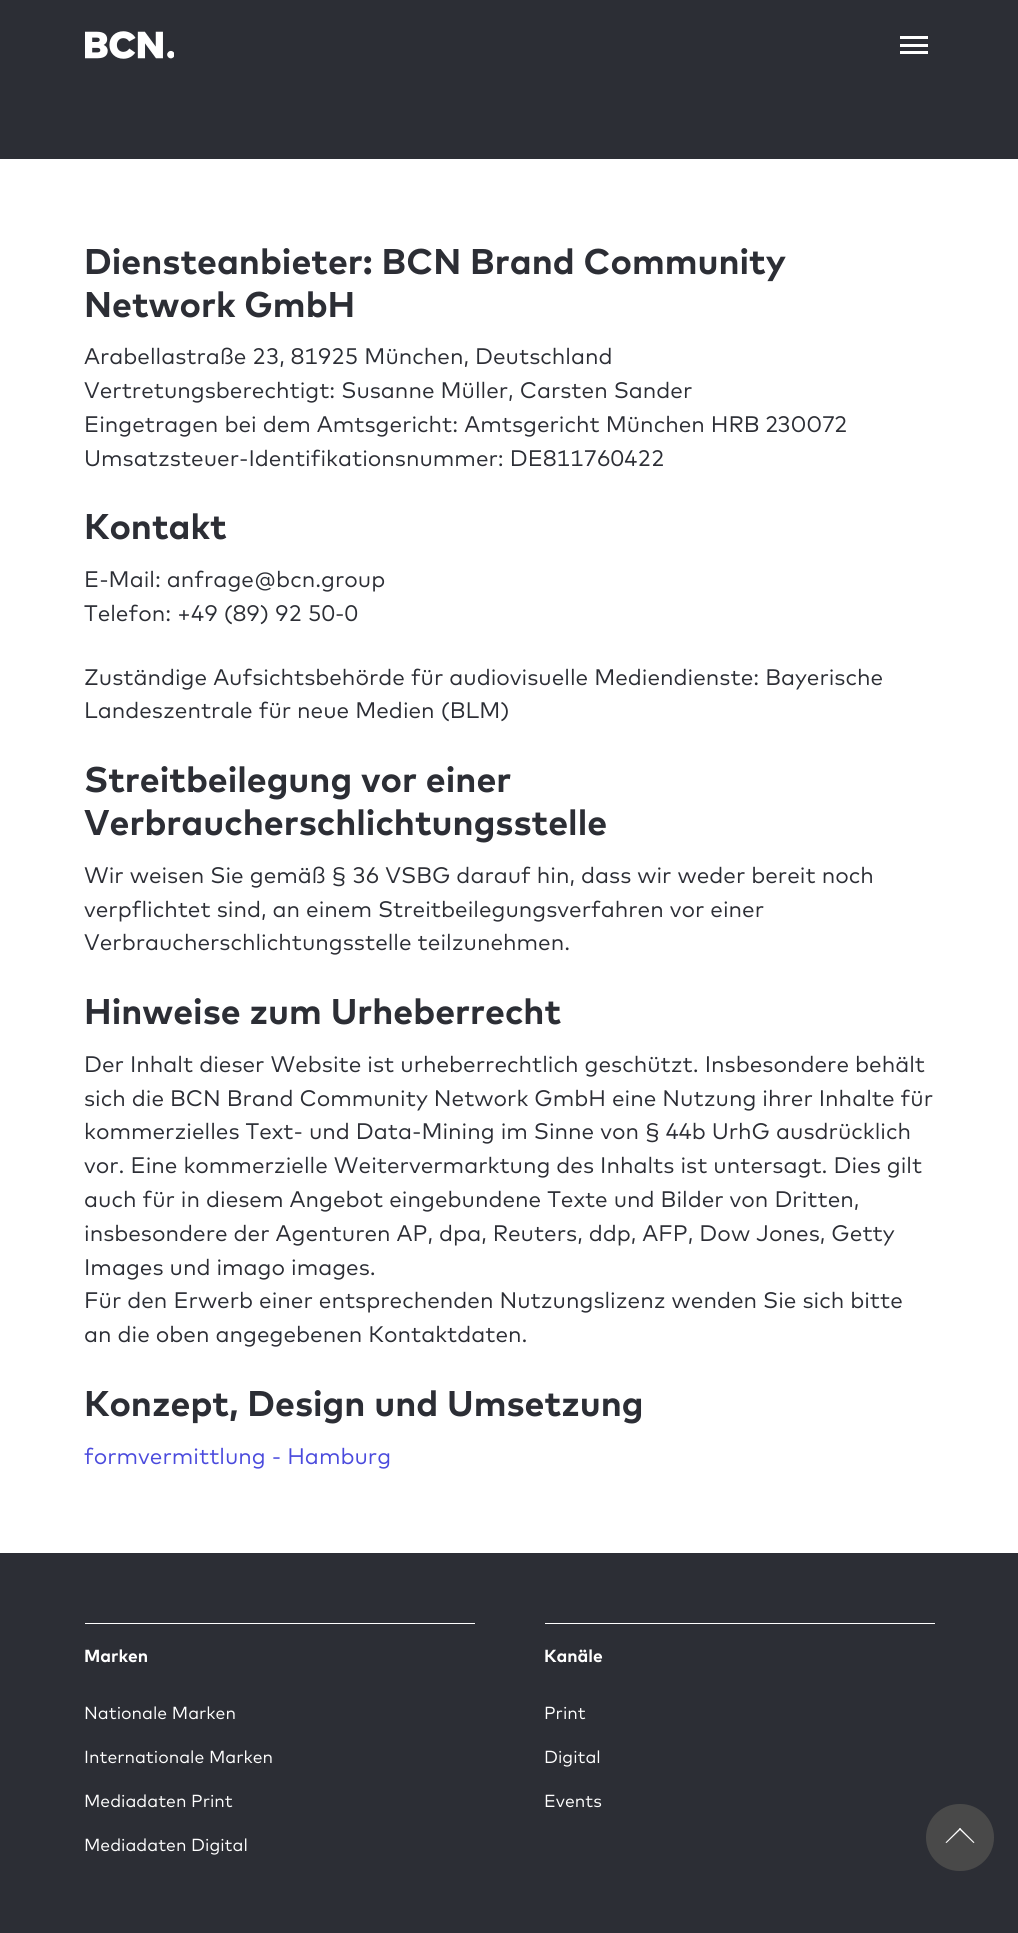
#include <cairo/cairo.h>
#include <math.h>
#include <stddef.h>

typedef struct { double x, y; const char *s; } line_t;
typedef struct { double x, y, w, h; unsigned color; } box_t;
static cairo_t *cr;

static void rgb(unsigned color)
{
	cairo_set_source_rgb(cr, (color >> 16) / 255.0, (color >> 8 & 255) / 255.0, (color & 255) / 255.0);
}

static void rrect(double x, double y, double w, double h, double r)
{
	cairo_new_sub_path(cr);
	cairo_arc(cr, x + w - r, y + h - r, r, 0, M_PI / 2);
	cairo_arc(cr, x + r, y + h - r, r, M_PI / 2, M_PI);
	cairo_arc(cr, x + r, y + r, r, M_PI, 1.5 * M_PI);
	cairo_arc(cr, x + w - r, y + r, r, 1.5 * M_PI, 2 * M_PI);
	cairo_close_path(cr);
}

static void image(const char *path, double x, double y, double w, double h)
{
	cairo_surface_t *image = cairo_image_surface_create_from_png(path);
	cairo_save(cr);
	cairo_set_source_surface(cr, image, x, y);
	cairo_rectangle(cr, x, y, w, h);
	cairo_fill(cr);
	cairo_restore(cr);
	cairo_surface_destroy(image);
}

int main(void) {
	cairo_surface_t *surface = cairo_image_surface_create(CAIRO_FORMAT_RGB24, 1018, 1933);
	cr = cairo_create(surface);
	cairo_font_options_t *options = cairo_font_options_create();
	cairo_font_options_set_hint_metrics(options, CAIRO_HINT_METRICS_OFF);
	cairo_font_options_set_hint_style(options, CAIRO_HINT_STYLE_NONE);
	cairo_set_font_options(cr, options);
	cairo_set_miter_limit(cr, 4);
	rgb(0xffffff);
	cairo_paint(cr);
	rgb(0x2c2e35);
	cairo_rectangle(cr, 0, 0, 1018, 159);
	cairo_fill(cr);
	image("img/1.png", 85, 31, 89, 28);
	{
		static const box_t items[] = {
			{900, 44, 28, 3, 0xffffff},
			{900, 36, 28, 3, 0xffffff},
			{900, 51, 28, 3, 0xffffff},
			{0, 1553, 1018, 380, 0x2c2e35},
			{85, 1623, 390, 1, 0xffffff},
			{545, 1623, 390, 1, 0xffffff},
		};
		for (size_t i = 0; i < sizeof items / sizeof *items; i++) {
			rgb(items[i].color);
			cairo_rectangle(cr, items[i].x, items[i].y, items[i].w, items[i].h);
			cairo_fill(cr);
		}
	}
	rgb(0x494949);
	rrect(926, 1804, 68, 67, 33.5);
	cairo_fill(cr);
	rgb(0xffffff);
	cairo_new_path(cr);
	cairo_move_to(cr, 960, 1828);
	cairo_line_to(cr, 974.5, 1842.5);
	cairo_line_to(cr, 973.5, 1843);
	cairo_line_to(cr, 959, 1829);
	cairo_close_path(cr);
	cairo_fill(cr);
	cairo_new_path(cr);
	cairo_move_to(cr, 960, 1828);
	cairo_line_to(cr, 961, 1829);
	cairo_line_to(cr, 946.5, 1843);
	cairo_line_to(cr, 945.5, 1842.5);
	cairo_close_path(cr);
	cairo_fill(cr);
	cairo_select_font_face(cr, "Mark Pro", CAIRO_FONT_SLANT_NORMAL, CAIRO_FONT_WEIGHT_BOLD);
	cairo_set_font_size(cr, 35.7);
	rgb(0x2c2e35);
	cairo_move_to(cr, 84, 274);
	cairo_show_text(cr, "Diensteanbieter: BCN Brand Community");
	cairo_move_to(cr, 84, 317);
	cairo_show_text(cr, "Network GmbH");
	cairo_select_font_face(cr, "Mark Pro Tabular", CAIRO_FONT_SLANT_NORMAL, CAIRO_FONT_WEIGHT_NORMAL);
	cairo_set_font_size(cr, 22.5);
	cairo_move_to(cr, 84, 364);
	cairo_show_text(cr, "Arabellastraße 23, 81925 München, Deutschland");
	cairo_select_font_face(cr, "Mark Pro", CAIRO_FONT_SLANT_NORMAL, CAIRO_FONT_WEIGHT_NORMAL);
	cairo_move_to(cr, 84, 398);
	cairo_show_text(cr, "Vertretungsberechtigt: Susanne Müller, Carsten Sander");
	cairo_move_to(cr, 84, 432);
	cairo_show_text(cr, "Eingetragen bei dem Amtsgericht: Amtsgericht München HRB 230072");
	cairo_select_font_face(cr, "Mark Pro Tabular", CAIRO_FONT_SLANT_NORMAL, CAIRO_FONT_WEIGHT_NORMAL);
	cairo_move_to(cr, 84, 466);
	cairo_show_text(cr, "Umsatzsteuer-Identifikationsnummer: DE811760422");
	cairo_select_font_face(cr, "Mark Pro", CAIRO_FONT_SLANT_NORMAL, CAIRO_FONT_WEIGHT_BOLD);
	cairo_set_font_size(cr, 35.7);
	cairo_move_to(cr, 84, 539);
	cairo_show_text(cr, "Kontakt");
	cairo_select_font_face(cr, "Mark Pro", CAIRO_FONT_SLANT_NORMAL, CAIRO_FONT_WEIGHT_NORMAL);
	cairo_set_font_size(cr, 22.5);
	cairo_move_to(cr, 84, 587);
	cairo_show_text(cr, "E-Mail: anfrage@bcn.group");
	cairo_select_font_face(cr, "Mark Pro Tabular", CAIRO_FONT_SLANT_NORMAL, CAIRO_FONT_WEIGHT_NORMAL);
	cairo_move_to(cr, 84, 621);
	cairo_show_text(cr, "Telefon: +49 (89) 92 50-0");
	cairo_select_font_face(cr, "Mark Pro", CAIRO_FONT_SLANT_NORMAL, CAIRO_FONT_WEIGHT_NORMAL);
	cairo_move_to(cr, 84, 685);
	cairo_show_text(cr, "Zuständige Aufsichtsbehörde für audiovisuelle Mediendienste: Bayerische");
	cairo_move_to(cr, 84, 718);
	cairo_show_text(cr, "Landeszentrale für neue Medien (BLM)");
	cairo_select_font_face(cr, "Mark Pro", CAIRO_FONT_SLANT_NORMAL, CAIRO_FONT_WEIGHT_BOLD);
	cairo_set_font_size(cr, 35.7);
	cairo_move_to(cr, 84, 792);
	cairo_show_text(cr, "Streitbeilegung vor einer");
	cairo_move_to(cr, 84, 835);
	cairo_show_text(cr, "Verbraucherschlichtungsstelle");
	cairo_select_font_face(cr, "Mark Pro Tabular", CAIRO_FONT_SLANT_NORMAL, CAIRO_FONT_WEIGHT_NORMAL);
	cairo_set_font_size(cr, 22.5);
	cairo_move_to(cr, 84, 883);
	cairo_show_text(cr, "Wir weisen Sie gemäß § 36 VSBG darauf hin, dass wir weder bereit noch");
	cairo_select_font_face(cr, "Mark Pro", CAIRO_FONT_SLANT_NORMAL, CAIRO_FONT_WEIGHT_NORMAL);
	cairo_move_to(cr, 84, 917);
	cairo_show_text(cr, "verpflichtet sind, an einem Streitbeilegungsverfahren vor einer");
	cairo_move_to(cr, 84, 950);
	cairo_show_text(cr, "Verbraucherschlichtungsstelle teilzunehmen.");
	cairo_select_font_face(cr, "Mark Pro", CAIRO_FONT_SLANT_NORMAL, CAIRO_FONT_WEIGHT_BOLD);
	cairo_set_font_size(cr, 35.7);
	cairo_move_to(cr, 84, 1024);
	cairo_show_text(cr, "Hinweise zum Urheberrecht");
	cairo_select_font_face(cr, "Mark Pro", CAIRO_FONT_SLANT_NORMAL, CAIRO_FONT_WEIGHT_NORMAL);
	cairo_set_font_size(cr, 22.5);
	{
		static const line_t items[] = {
			{84, 1072, "Der Inhalt dieser Website ist urheberrechtlich geschützt. Insbesondere behält"},
			{84, 1106, "sich die BCN Brand Community Network GmbH eine Nutzung ihrer Inhalte für"},
			{84, 1139, "kommerzielles Text- und Data-Mining im Sinne von § 44b UrhG ausdrücklich"},
			{84, 1173, "vor. Eine kommerzielle Weitervermarktung des Inhalts ist untersagt. Dies gilt"},
			{84, 1207, "auch für in diesem Angebot eingebundene Texte und Bilder von Dritten,"},
			{84, 1241, "insbesondere der Agenturen AP, dpa, Reuters, ddp, AFP, Dow Jones, Getty"},
			{84, 1275, "Images und imago images."},
			{84, 1308, "Für den Erwerb einer entsprechenden Nutzungslizenz wenden Sie sich bitte"},
			{84, 1342, "an die oben angegebenen Kontaktdaten."},
		};
		for (size_t i = 0; i < sizeof items / sizeof *items; i++) {
			cairo_move_to(cr, items[i].x, items[i].y);
			cairo_show_text(cr, items[i].s);
		}
	}
	cairo_select_font_face(cr, "Mark Pro", CAIRO_FONT_SLANT_NORMAL, CAIRO_FONT_WEIGHT_BOLD);
	cairo_set_font_size(cr, 35.7);
	cairo_move_to(cr, 84, 1416);
	cairo_show_text(cr, "Konzept, Design und Umsetzung");
	cairo_select_font_face(cr, "Mark Pro", CAIRO_FONT_SLANT_NORMAL, CAIRO_FONT_WEIGHT_NORMAL);
	cairo_set_font_size(cr, 22.5);
	rgb(0x4a4add);
	cairo_move_to(cr, 84, 1464);
	cairo_show_text(cr, "formvermittlung - Hamburg");
	cairo_select_font_face(cr, "Mark Pro", CAIRO_FONT_SLANT_NORMAL, CAIRO_FONT_WEIGHT_BOLD);
	cairo_set_font_size(cr, 17.5);
	rgb(0xffffff);
	cairo_move_to(cr, 84, 1662);
	cairo_show_text(cr, "Marken");
	cairo_select_font_face(cr, "Mark Pro", CAIRO_FONT_SLANT_NORMAL, CAIRO_FONT_WEIGHT_NORMAL);
	{
		static const line_t items[] = {
			{84, 1719, "Nationale Marken"},
			{84, 1763, "Internationale Marken"},
			{84, 1807, "Mediadaten Print"},
			{84, 1851, "Mediadaten Digital"},
		};
		for (size_t i = 0; i < sizeof items / sizeof *items; i++) {
			cairo_move_to(cr, items[i].x, items[i].y);
			cairo_show_text(cr, items[i].s);
		}
	}
	cairo_select_font_face(cr, "Mark Pro", CAIRO_FONT_SLANT_NORMAL, CAIRO_FONT_WEIGHT_BOLD);
	cairo_move_to(cr, 544, 1662);
	cairo_show_text(cr, "Kanäle");
	cairo_select_font_face(cr, "Mark Pro", CAIRO_FONT_SLANT_NORMAL, CAIRO_FONT_WEIGHT_NORMAL);
	{
		static const line_t items[] = {
			{544, 1719, "Print"},
			{544, 1763, "Digital"},
			{544, 1807, "Events"},
		};
		for (size_t i = 0; i < sizeof items / sizeof *items; i++) {
			cairo_move_to(cr, items[i].x, items[i].y);
			cairo_show_text(cr, items[i].s);
		}
	}
	cairo_surface_write_to_png(surface, "page.png");
	cairo_font_options_destroy(options);
	cairo_destroy(cr);
	cairo_surface_destroy(surface);
	return 0;
}
